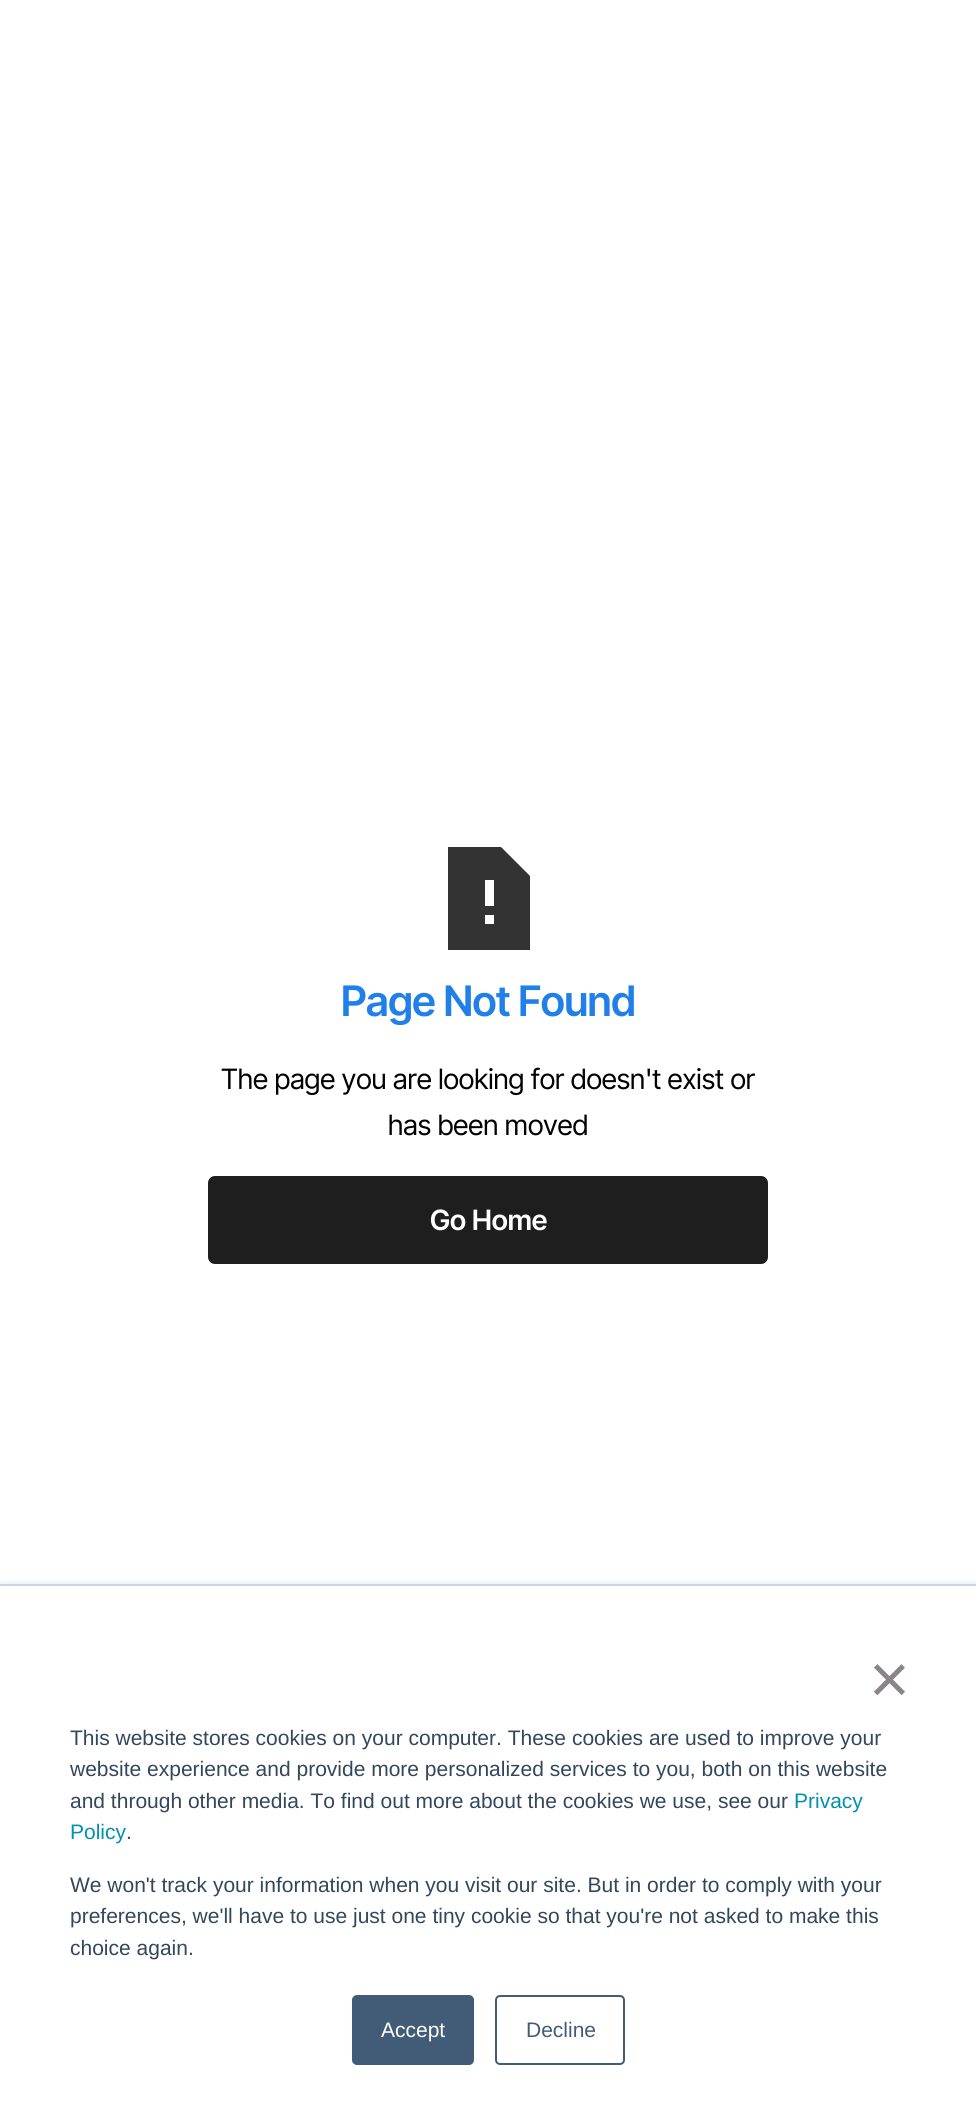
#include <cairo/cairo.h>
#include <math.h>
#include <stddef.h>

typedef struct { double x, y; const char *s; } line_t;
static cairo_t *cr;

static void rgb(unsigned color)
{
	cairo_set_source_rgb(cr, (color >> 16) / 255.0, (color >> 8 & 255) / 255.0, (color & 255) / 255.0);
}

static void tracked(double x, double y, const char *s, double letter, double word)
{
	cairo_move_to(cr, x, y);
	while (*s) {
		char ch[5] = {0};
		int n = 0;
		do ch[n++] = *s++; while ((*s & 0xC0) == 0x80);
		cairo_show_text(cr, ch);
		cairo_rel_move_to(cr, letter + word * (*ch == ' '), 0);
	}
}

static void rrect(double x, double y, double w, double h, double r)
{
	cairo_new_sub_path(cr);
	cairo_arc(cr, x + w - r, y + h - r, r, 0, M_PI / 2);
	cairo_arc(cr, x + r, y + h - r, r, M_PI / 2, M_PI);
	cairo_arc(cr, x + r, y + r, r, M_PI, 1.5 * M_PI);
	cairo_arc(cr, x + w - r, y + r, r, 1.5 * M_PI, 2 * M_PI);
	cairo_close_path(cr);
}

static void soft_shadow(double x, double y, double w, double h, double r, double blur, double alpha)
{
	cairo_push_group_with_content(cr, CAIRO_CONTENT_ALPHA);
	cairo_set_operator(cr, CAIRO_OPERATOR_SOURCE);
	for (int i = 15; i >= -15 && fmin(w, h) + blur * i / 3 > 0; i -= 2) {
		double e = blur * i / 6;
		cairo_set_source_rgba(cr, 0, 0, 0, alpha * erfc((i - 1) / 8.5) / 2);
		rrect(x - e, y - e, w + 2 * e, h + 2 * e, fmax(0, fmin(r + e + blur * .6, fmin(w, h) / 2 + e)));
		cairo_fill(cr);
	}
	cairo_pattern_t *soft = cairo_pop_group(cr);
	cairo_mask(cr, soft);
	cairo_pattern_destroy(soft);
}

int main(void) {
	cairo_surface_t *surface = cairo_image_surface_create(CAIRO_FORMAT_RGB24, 976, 2109);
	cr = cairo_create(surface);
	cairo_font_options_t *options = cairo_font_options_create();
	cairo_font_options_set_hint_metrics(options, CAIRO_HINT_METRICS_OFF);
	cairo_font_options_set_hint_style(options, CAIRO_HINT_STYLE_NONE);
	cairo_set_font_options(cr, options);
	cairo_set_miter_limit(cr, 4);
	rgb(0xffffff);
	cairo_paint(cr);
	rgb(0x333333);
	cairo_set_fill_rule(cr, CAIRO_FILL_RULE_EVEN_ODD);
	cairo_new_path(cr);
	cairo_move_to(cr, 448, 847);
	cairo_line_to(cr, 501, 847);
	cairo_line_to(cr, 530, 876);
	cairo_line_to(cr, 530, 950);
	cairo_line_to(cr, 448, 950);
	cairo_close_path(cr);
	cairo_move_to(cr, 485, 880);
	cairo_line_to(cr, 494, 880);
	cairo_line_to(cr, 494, 906);
	cairo_line_to(cr, 485, 906);
	cairo_close_path(cr);
	cairo_move_to(cr, 485, 915);
	cairo_line_to(cr, 494, 915);
	cairo_line_to(cr, 494, 924);
	cairo_line_to(cr, 485, 924);
	cairo_close_path(cr);
	cairo_fill(cr);
	rgb(0x1e1e1e);
	rrect(208, 1176, 560, 88, 7);
	cairo_fill(cr);
	cairo_save(cr);
	cairo_set_fill_rule(cr, CAIRO_FILL_RULE_WINDING);
	cairo_rectangle(cr, 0, 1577, 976, 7);
	cairo_clip(cr);
	rgb(0xeaf0f6);
	soft_shadow(0, 1582, 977, 527, 0, 2.5, 1);
	cairo_restore(cr);
	rgb(0xcbd6e2);
	cairo_rectangle(cr, 0, 1584, 976, 2);
	cairo_fill(cr);
	rgb(0x425b76);
	rrect(353, 1996, 120, 68, 4);
	cairo_fill_preserve(cr);
	cairo_stroke(cr);
	rrect(496, 1996, 128, 68, 4);
	cairo_stroke(cr);
	cairo_select_font_face(cr, "Inter Tight SemiBold", CAIRO_FONT_SLANT_NORMAL, CAIRO_FONT_WEIGHT_NORMAL);
	cairo_set_font_size(cr, 42);
	rgb(0x217fea);
	tracked(341, 1016, "Page Not Found", -0.5, 0);
	cairo_select_font_face(cr, "Inter Tight", CAIRO_FONT_SLANT_NORMAL, CAIRO_FONT_WEIGHT_NORMAL);
	cairo_set_font_size(cr, 28);
	rgb(0x000000);
	cairo_move_to(cr, 221, 1089);
	cairo_show_text(cr, "The page you are looking for doesn't exist or");
	cairo_move_to(cr, 388, 1135);
	cairo_show_text(cr, "has been moved");
	cairo_select_font_face(cr, "Inter Tight SemiBold", CAIRO_FONT_SLANT_NORMAL, CAIRO_FONT_WEIGHT_NORMAL);
	rgb(0xffffff);
	cairo_move_to(cr, 430, 1230);
	cairo_show_text(cr, "Go Home");
	cairo_select_font_face(cr, "Liberation Sans", CAIRO_FONT_SLANT_NORMAL, CAIRO_FONT_WEIGHT_NORMAL);
	cairo_set_font_size(cr, 70);
	rgb(0x8b8589);
	cairo_move_to(cr, 869, 1703);
	cairo_show_text(cr, "×");
	cairo_set_font_size(cr, 21);
	rgb(0x33475b);
	{
		static const line_t items[] = {
			{70, 1745, "This website stores cookies on your computer. These cookies are used to improve your"},
			{70, 1776, "website experience and provide more personalized services to you, both on this website"},
			{70, 1808, "and through other media. To find out more about the cookies we use, see our"},
		};
		for (size_t i = 0; i < sizeof items / sizeof *items; i++) {
			cairo_move_to(cr, items[i].x, items[i].y);
			cairo_show_text(cr, items[i].s);
		}
	}
	rgb(0x0091ae);
	cairo_move_to(cr, 794, 1808);
	cairo_show_text(cr, "Privacy");
	cairo_move_to(cr, 70, 1839);
	cairo_show_text(cr, "Policy");
	rgb(0x33475b);
	{
		static const line_t items[] = {
			{126, 1839, "."},
			{70, 1892, "We won't track your information when you visit our site. But in order to comply with your"},
			{70, 1923, "preferences, we'll have to use just one tiny cookie so that you're not asked to make this"},
			{70, 1955, "choice again."},
		};
		for (size_t i = 0; i < sizeof items / sizeof *items; i++) {
			cairo_move_to(cr, items[i].x, items[i].y);
			cairo_show_text(cr, items[i].s);
		}
	}
	rgb(0xffffff);
	cairo_move_to(cr, 381, 2037);
	cairo_show_text(cr, "Accept");
	rgb(0x425b76);
	cairo_move_to(cr, 526, 2037);
	cairo_show_text(cr, "Decline");
	cairo_surface_write_to_png(surface, "page.png");
	cairo_font_options_destroy(options);
	cairo_destroy(cr);
	cairo_surface_destroy(surface);
	return 0;
}
